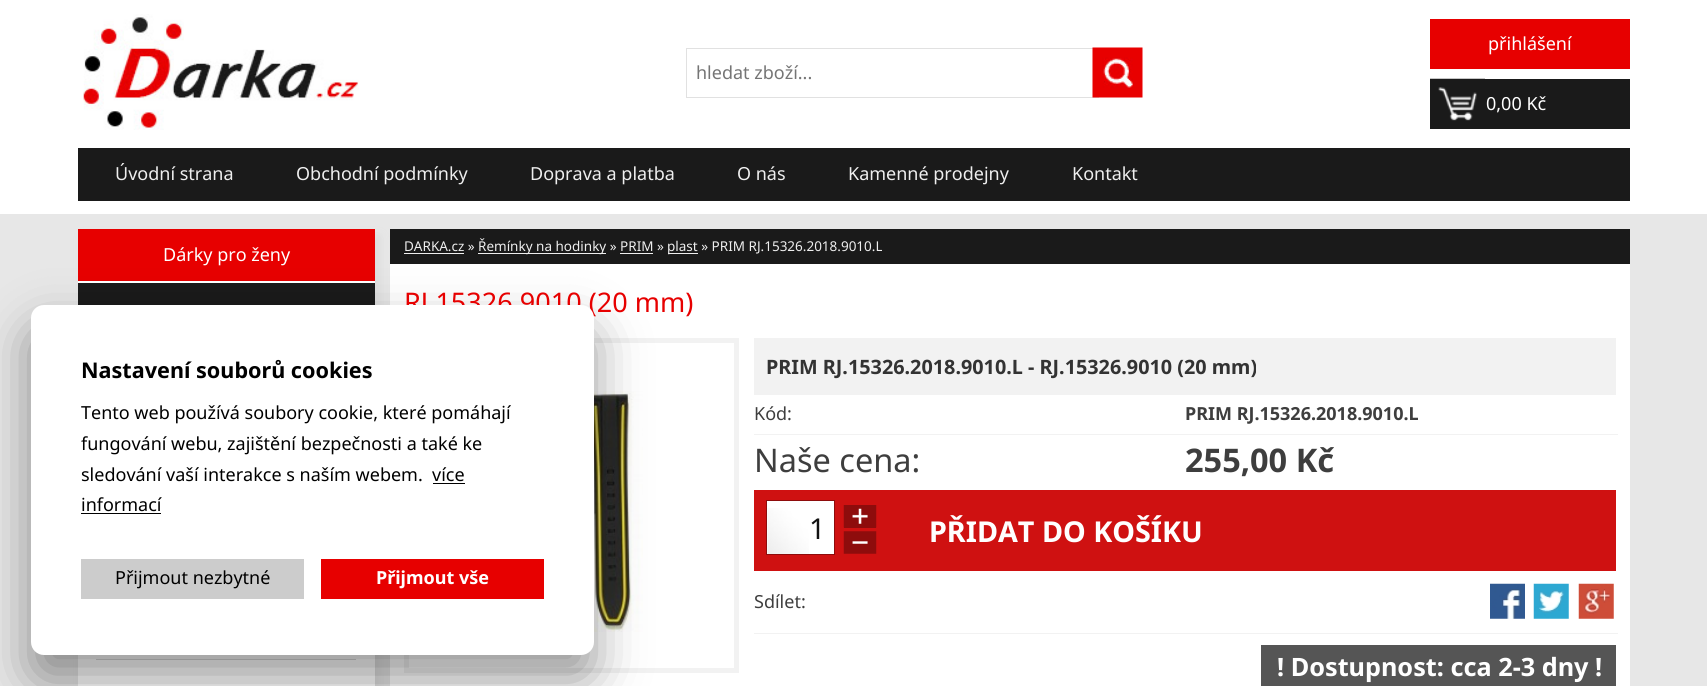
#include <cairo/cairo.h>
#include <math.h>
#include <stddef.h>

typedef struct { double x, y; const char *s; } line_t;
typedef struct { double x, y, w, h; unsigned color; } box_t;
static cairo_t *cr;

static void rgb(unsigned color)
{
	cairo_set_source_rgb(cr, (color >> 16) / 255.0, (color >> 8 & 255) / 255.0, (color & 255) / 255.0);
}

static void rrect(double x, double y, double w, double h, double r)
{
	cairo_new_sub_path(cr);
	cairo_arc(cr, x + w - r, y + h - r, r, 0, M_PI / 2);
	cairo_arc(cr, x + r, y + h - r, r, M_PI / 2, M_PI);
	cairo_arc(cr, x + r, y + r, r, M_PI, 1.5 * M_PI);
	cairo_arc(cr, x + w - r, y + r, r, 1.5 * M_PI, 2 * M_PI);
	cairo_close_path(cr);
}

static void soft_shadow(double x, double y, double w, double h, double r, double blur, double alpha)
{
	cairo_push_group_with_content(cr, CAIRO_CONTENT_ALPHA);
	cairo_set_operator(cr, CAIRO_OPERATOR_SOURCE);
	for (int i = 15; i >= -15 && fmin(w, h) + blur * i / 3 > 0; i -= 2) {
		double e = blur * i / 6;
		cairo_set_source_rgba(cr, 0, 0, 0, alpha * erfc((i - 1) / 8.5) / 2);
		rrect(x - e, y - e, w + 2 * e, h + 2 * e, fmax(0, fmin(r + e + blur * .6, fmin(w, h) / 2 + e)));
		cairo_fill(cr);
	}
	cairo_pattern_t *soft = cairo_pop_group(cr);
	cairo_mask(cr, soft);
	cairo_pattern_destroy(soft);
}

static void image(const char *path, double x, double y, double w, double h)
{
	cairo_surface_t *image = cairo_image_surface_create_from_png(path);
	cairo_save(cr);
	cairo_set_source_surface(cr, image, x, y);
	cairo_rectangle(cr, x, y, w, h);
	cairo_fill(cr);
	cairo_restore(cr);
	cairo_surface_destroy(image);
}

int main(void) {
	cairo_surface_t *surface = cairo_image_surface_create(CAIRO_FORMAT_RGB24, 1707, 686);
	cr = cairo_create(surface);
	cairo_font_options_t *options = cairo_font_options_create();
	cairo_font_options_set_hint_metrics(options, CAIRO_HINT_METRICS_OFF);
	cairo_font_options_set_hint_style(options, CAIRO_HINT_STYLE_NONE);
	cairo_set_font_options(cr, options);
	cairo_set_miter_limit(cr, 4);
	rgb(0xe7e7e7);
	cairo_paint(cr);
	rgb(0xffffff);
	cairo_rectangle(cr, 0, 0, 1707, 214);
	cairo_fill(cr);
	image("img/1.png", 83, 14, 276, 116);
	cairo_rectangle(cr, 686.5, 48.5, 412, 49);
	rgb(0xe1e1e1);
	cairo_set_line_width(cr, 1);
	cairo_stroke(cr);
	image("img/2.png", 1092, 47, 51, 51);
	rgb(0xe70000);
	cairo_rectangle(cr, 1430, 19, 200, 50);
	cairo_fill(cr);
	rgb(0x1a1a1a);
	cairo_rectangle(cr, 1430, 79, 200, 50);
	cairo_fill(cr);
	image("img/3.png", 1430, 78, 55, 43);
	cairo_rectangle(cr, 78, 148, 1552, 53);
	cairo_fill(cr);
	rgb(0xdddddd);
	soft_shadow(83, 236, 297, 160, 0, 4.5, 1);
	{
		static const box_t items[] = {
			{78, 281, 297, 2, 0xffffff},
			{78, 229, 297, 52, 0xe70000},
			{78, 283, 297, 22, 0x1a1a1a},
		};
		for (size_t i = 0; i < sizeof items / sizeof *items; i++) {
			rgb(items[i].color);
			cairo_rectangle(cr, items[i].x, items[i].y, items[i].w, items[i].h);
			cairo_fill(cr);
		}
	}
	rgb(0xdddddd);
	soft_shadow(83, 411, 297, 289, 0, 4.5, 1);
	{
		static const box_t items[] = {
			{78, 655, 297, 31, 0xffffff},
			{96, 659, 260, 1, 0xd5d5d5},
			{390, 264, 1240, 422, 0xffffff},
			{390, 229, 1240, 35, 0x1a1a1a},
			{404, 253, 60, 1, 0xeeeeee},
			{478, 253, 128, 1, 0xeeeeee},
			{668, 253, 30, 1, 0xeeeeee},
			{620, 253, 33, 1, 0xeeeeee},
		};
		for (size_t i = 0; i < sizeof items / sizeof *items; i++) {
			rgb(items[i].color);
			cairo_rectangle(cr, items[i].x, items[i].y, items[i].w, items[i].h);
			cairo_fill(cr);
		}
	}
	cairo_rectangle(cr, 406.5, 340.5, 330, 330);
	rgb(0xf2f2f2);
	cairo_set_line_width(cr, 5);
	cairo_stroke(cr);
	image("img/4.png", 594, 391, 49, 241);
	{
		static const box_t items[] = {
			{754, 338, 862, 57, 0xf2f2f2},
			{754, 434, 864, 1, 0xf2f2f2},
			{754, 490, 862, 81, 0xcf1111},
			{767, 501, 67, 53, 0xffffff},
		};
		for (size_t i = 0; i < sizeof items / sizeof *items; i++) {
			rgb(items[i].color);
			cairo_rectangle(cr, items[i].x, items[i].y, items[i].w, items[i].h);
			cairo_fill(cr);
		}
	}
	image("img/5.png", 767, 508, 42, 46);
	cairo_rectangle(cr, 766.5, 500.5, 68, 54);
	rgb(0x8e0c0c);
	cairo_set_line_width(cr, 1);
	cairo_stroke(cr);
	cairo_rectangle(cr, 844, 527, 32, 1);
	cairo_fill(cr);
	image("img/6.png", 843, 505, 34, 23);
	image("img/7.png", 843, 531, 34, 23);
	rgb(0xf2f2f2);
	cairo_rectangle(cr, 754, 633, 864, 1);
	cairo_fill(cr);
	image("img/8.png", 1490, 583, 35, 36);
	image("img/9.png", 1533, 583, 36, 36);
	image("img/10.png", 1578, 583, 36, 36);
	rgb(0x555555);
	cairo_rectangle(cr, 1261, 645, 355, 41);
	cairo_fill(cr);
	rgb(0x000000);
	soft_shadow(31, 330, 563, 350, 13, 25, 0.4);
	cairo_select_font_face(cr, "Noto Sans", CAIRO_FONT_SLANT_NORMAL, CAIRO_FONT_WEIGHT_NORMAL);
	cairo_set_font_size(cr, 18);
	rgb(0x757575);
	cairo_move_to(cr, 696, 79);
	cairo_show_text(cr, "hledat zboží...");
	rgb(0xffffff);
	cairo_move_to(cr, 1488, 50);
	cairo_show_text(cr, "přihlášení");
	cairo_move_to(cr, 1486, 110);
	cairo_show_text(cr, "0,00 Kč");
	rgb(0xeeeeee);
	{
		static const line_t items[] = {
			{115, 180, "Úvodní strana"},
			{296, 180, "Obchodní podmínky"},
			{530, 180, "Doprava a platba"},
			{737, 180, "O nás"},
			{848, 180, "Kamenné prodejny"},
			{1072, 180, "Kontakt"},
		};
		for (size_t i = 0; i < sizeof items / sizeof *items; i++) {
			cairo_move_to(cr, items[i].x, items[i].y);
			cairo_show_text(cr, items[i].s);
		}
	}
	rgb(0xffffff);
	cairo_move_to(cr, 163, 261);
	cairo_show_text(cr, "Dárky pro ženy");
	cairo_set_font_size(cr, 13.5);
	rgb(0xeeeeee);
	{
		static const line_t items[] = {
			{404, 251, "DARKA.cz »"},
			{478, 251, "Řemínky na hodinky » PRIM »"},
			{667, 251, "plast » PRIM RJ.15326.2018.9010.L"},
		};
		for (size_t i = 0; i < sizeof items / sizeof *items; i++) {
			cairo_move_to(cr, items[i].x, items[i].y);
			cairo_show_text(cr, items[i].s);
		}
	}
	cairo_set_font_size(cr, 27);
	rgb(0xe70000);
	cairo_move_to(cr, 404, 312);
	cairo_show_text(cr, "RJ.15326.9010 (20 mm)");
	cairo_select_font_face(cr, "Noto Sans", CAIRO_FONT_SLANT_NORMAL, CAIRO_FONT_WEIGHT_BOLD);
	cairo_set_font_size(cr, 19.8);
	rgb(0x333333);
	cairo_move_to(cr, 766, 374);
	cairo_show_text(cr, "PRIM RJ.15326.2018.9010.L - RJ.15326.9010 (20 mm)");
	cairo_select_font_face(cr, "Noto Sans", CAIRO_FONT_SLANT_NORMAL, CAIRO_FONT_WEIGHT_NORMAL);
	cairo_set_font_size(cr, 18);
	rgb(0x3e3e3e);
	cairo_move_to(cr, 754, 420);
	cairo_show_text(cr, "Kód:");
	cairo_select_font_face(cr, "Noto Sans", CAIRO_FONT_SLANT_NORMAL, CAIRO_FONT_WEIGHT_BOLD);
	cairo_move_to(cr, 1185, 420);
	cairo_show_text(cr, "PRIM RJ.15326.2018.9010.L");
	cairo_select_font_face(cr, "Noto Sans", CAIRO_FONT_SLANT_NORMAL, CAIRO_FONT_WEIGHT_NORMAL);
	cairo_set_font_size(cr, 32.5);
	cairo_move_to(cr, 754, 472);
	cairo_show_text(cr, "Naše cena:");
	cairo_select_font_face(cr, "Noto Sans", CAIRO_FONT_SLANT_NORMAL, CAIRO_FONT_WEIGHT_BOLD);
	cairo_move_to(cr, 1185, 472);
	cairo_show_text(cr, "255,00 Kč");
	cairo_select_font_face(cr, "Noto Sans", CAIRO_FONT_SLANT_NORMAL, CAIRO_FONT_WEIGHT_NORMAL);
	cairo_set_font_size(cr, 28.75);
	rgb(0x111111);
	cairo_move_to(cr, 809, 539);
	cairo_show_text(cr, "1");
	cairo_select_font_face(cr, "Noto Sans", CAIRO_FONT_SLANT_NORMAL, CAIRO_FONT_WEIGHT_BOLD);
	rgb(0xffffff);
	cairo_move_to(cr, 929, 542);
	cairo_show_text(cr, "PŘIDAT DO KOŠÍKU");
	cairo_select_font_face(cr, "Noto Sans", CAIRO_FONT_SLANT_NORMAL, CAIRO_FONT_WEIGHT_NORMAL);
	cairo_set_font_size(cr, 18);
	rgb(0x3e3e3e);
	cairo_move_to(cr, 754, 608);
	cairo_show_text(cr, "Sdílet:");
	cairo_select_font_face(cr, "Noto Sans", CAIRO_FONT_SLANT_NORMAL, CAIRO_FONT_WEIGHT_BOLD);
	cairo_set_font_size(cr, 25.25);
	rgb(0xffffff);
	cairo_move_to(cr, 1277, 676);
	cairo_show_text(cr, "! Dostupnost: cca 2-3 dny !");
	rrect(31, 305, 563, 350, 13);
	cairo_fill(cr);
	cairo_set_font_size(cr, 21.6);
	rgb(0x000000);
	cairo_move_to(cr, 81, 378);
	cairo_show_text(cr, "Nastavení souborů cookies");
	cairo_select_font_face(cr, "Noto Sans", CAIRO_FONT_SLANT_NORMAL, CAIRO_FONT_WEIGHT_NORMAL);
	cairo_set_font_size(cr, 18);
	{
		static const line_t items[] = {
			{81, 419, "Tento web používá soubory cookie, které pomáhají"},
			{81, 450, "fungování webu, zajištění bezpečnosti a také ke"},
			{81, 481, "sledování vaší interakce s naším webem."},
			{432, 481, "více"},
		};
		for (size_t i = 0; i < sizeof items / sizeof *items; i++) {
			cairo_move_to(cr, items[i].x, items[i].y);
			cairo_show_text(cr, items[i].s);
		}
	}
	cairo_rectangle(cr, 433, 483, 32, 1);
	cairo_fill(cr);
	cairo_move_to(cr, 81, 511);
	cairo_show_text(cr, "informací");
	cairo_rectangle(cr, 81, 513, 80, 1);
	cairo_fill(cr);
	rgb(0xcccccc);
	cairo_rectangle(cr, 81, 559, 223, 40);
	cairo_fill(cr);
	rgb(0x000000);
	cairo_move_to(cr, 115, 584);
	cairo_show_text(cr, "Přijmout nezbytné");
	rgb(0xe70000);
	cairo_rectangle(cr, 321, 559, 223, 40);
	cairo_fill(cr);
	cairo_select_font_face(cr, "Noto Sans", CAIRO_FONT_SLANT_NORMAL, CAIRO_FONT_WEIGHT_BOLD);
	rgb(0xffffff);
	cairo_move_to(cr, 376, 584);
	cairo_show_text(cr, "Přijmout vše");
	cairo_surface_write_to_png(surface, "page.png");
	cairo_font_options_destroy(options);
	cairo_destroy(cr);
	cairo_surface_destroy(surface);
	return 0;
}
